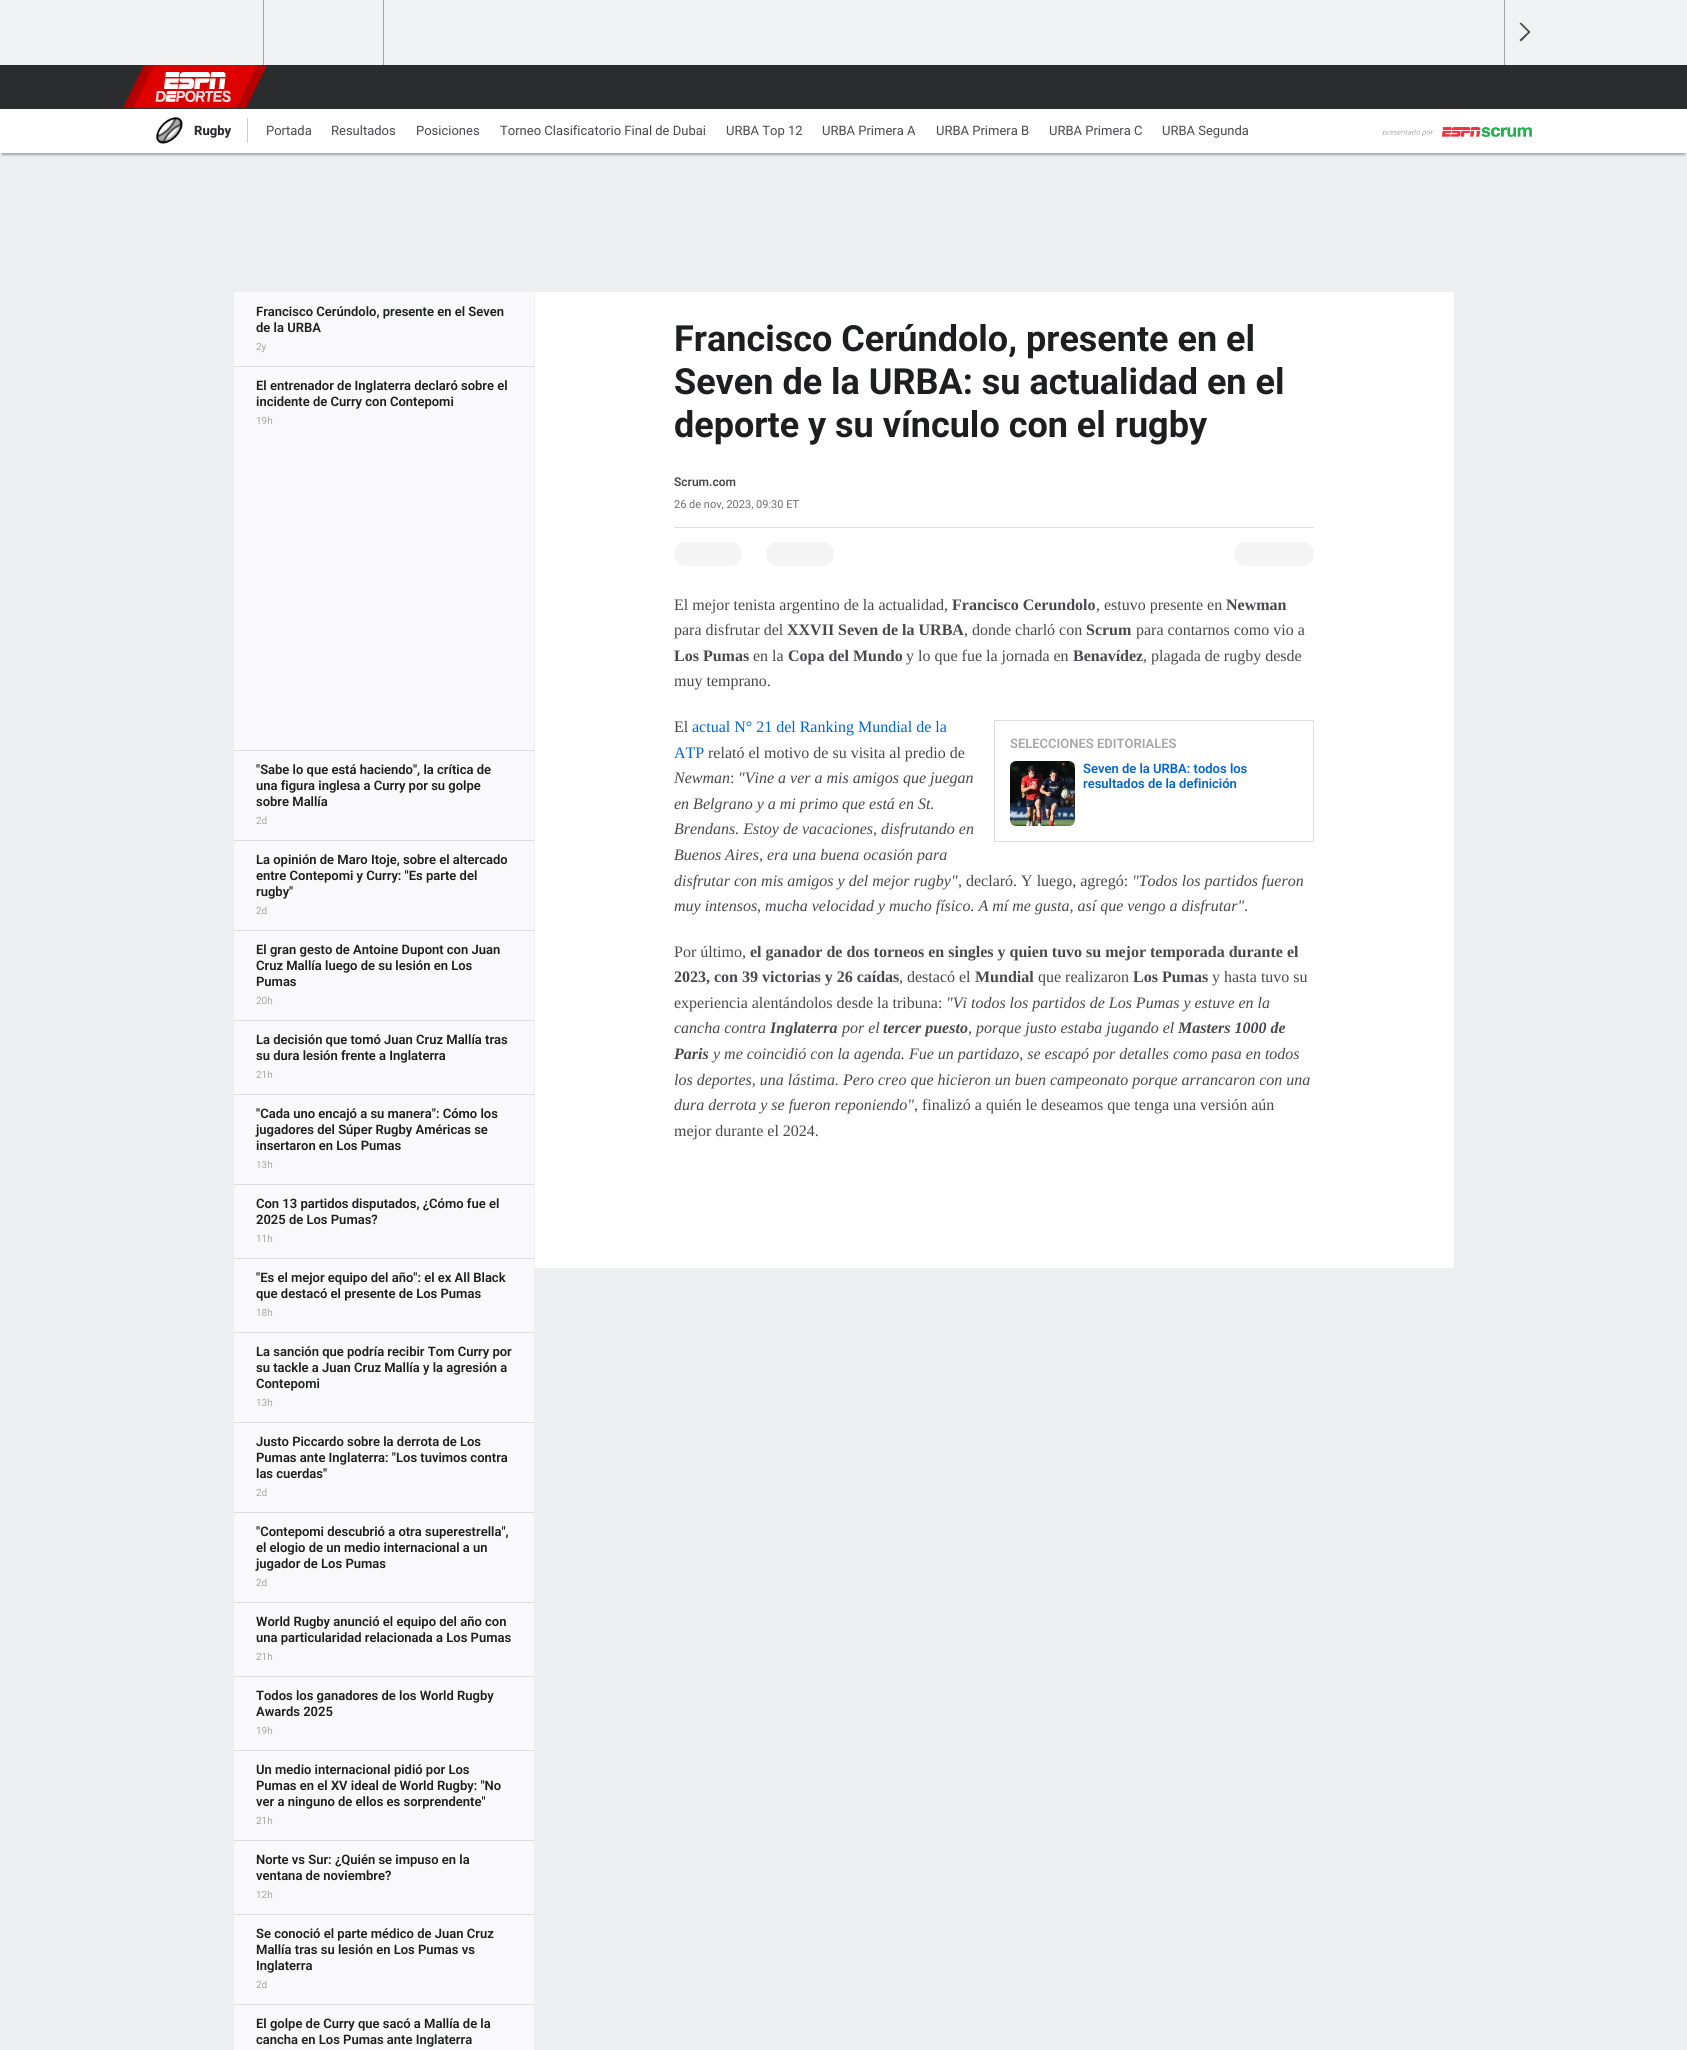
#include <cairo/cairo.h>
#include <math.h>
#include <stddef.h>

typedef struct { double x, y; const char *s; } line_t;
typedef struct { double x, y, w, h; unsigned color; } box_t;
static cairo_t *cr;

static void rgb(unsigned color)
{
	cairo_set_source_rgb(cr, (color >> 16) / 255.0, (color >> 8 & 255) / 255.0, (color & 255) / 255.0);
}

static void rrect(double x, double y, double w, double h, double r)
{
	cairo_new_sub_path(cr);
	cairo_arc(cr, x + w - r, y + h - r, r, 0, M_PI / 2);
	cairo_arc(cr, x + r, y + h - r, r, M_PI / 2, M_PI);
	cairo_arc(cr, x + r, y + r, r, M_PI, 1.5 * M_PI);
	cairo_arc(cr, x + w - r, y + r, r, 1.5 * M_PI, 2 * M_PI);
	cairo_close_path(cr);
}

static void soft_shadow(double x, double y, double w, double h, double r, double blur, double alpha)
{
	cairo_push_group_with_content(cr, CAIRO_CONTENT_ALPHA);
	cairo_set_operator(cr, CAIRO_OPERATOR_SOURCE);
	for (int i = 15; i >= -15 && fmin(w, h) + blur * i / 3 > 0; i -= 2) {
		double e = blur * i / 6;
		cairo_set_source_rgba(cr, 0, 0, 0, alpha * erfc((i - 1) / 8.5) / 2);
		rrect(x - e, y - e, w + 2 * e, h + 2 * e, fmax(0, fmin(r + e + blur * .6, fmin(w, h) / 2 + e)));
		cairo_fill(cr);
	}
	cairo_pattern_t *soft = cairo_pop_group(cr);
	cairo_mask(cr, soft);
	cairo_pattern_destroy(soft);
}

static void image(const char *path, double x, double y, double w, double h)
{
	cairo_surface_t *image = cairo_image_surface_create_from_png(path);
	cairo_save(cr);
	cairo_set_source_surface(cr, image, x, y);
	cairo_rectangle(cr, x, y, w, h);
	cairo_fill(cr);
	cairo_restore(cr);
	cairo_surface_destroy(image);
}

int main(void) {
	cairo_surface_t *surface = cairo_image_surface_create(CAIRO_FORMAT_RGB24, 1687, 2050);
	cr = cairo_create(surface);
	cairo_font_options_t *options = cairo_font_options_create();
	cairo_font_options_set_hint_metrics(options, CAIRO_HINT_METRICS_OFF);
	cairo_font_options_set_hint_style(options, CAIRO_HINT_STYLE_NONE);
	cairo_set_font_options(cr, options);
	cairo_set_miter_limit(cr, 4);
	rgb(0xedeef0);
	cairo_paint(cr);
	{
		static const box_t items[] = {
			{0, 0, 1687, 65, 0xf1f2f3},
			{263, 0, 1, 65, 0xa5a6a7},
			{383, 0, 1, 65, 0xa5a6a7},
			{1504, 0, 1, 65, 0xa5a6a7},
		};
		for (size_t i = 0; i < sizeof items / sizeof *items; i++) {
			rgb(items[i].color);
			cairo_rectangle(cr, items[i].x, items[i].y, items[i].w, items[i].h);
			cairo_fill(cr);
		}
	}
	rgb(0x48494a);
	cairo_new_path(cr);
	cairo_move_to(cr, 1521, 22.5);
	cairo_line_to(cr, 1519.5, 23.5);
	cairo_line_to(cr, 1528, 32);
	cairo_line_to(cr, 1519.5, 40);
	cairo_line_to(cr, 1521, 41.5);
	cairo_line_to(cr, 1530.5, 32);
	cairo_close_path(cr);
	cairo_fill(cr);
	rgb(0x2b2c2d);
	cairo_rectangle(cr, 0, 65, 1687, 44);
	cairo_fill(cr);
	rgb(0xb40000);
	cairo_new_path(cr);
	cairo_move_to(cr, 144, 65);
	cairo_line_to(cr, 267, 65);
	cairo_line_to(cr, 246, 108);
	cairo_line_to(cr, 123, 108);
	cairo_close_path(cr);
	cairo_fill(cr);
	rgb(0xdd0000);
	cairo_new_path(cr);
	cairo_move_to(cr, 154, 65);
	cairo_line_to(cr, 257, 65);
	cairo_line_to(cr, 236, 108);
	cairo_line_to(cr, 133, 108);
	cairo_close_path(cr);
	cairo_fill(cr);
	image("img/1.png", 155, 72, 76, 30);
	rgb(0x000000);
	soft_shadow(2, 115, 1683, 40, 0, 1, 0.3);
	rgb(0xffffff);
	rrect(0, 109, 1687, 44, 1);
	cairo_fill(cr);
	image("img/2.png", 156, 117, 27, 27);
	rgb(0xcbccce);
	cairo_rectangle(cr, 247, 118, 1, 25);
	cairo_fill(cr);
	image("img/3.png", 1382, 126, 150, 11);
	{
		static const box_t items[] = {
			{234, 292, 300, 1758, 0xf9f9fb},
			{234, 366, 300, 1, 0xdcdddf},
			{234, 750, 300, 1, 0xdcdddf},
			{234, 840, 300, 1, 0xdcdddf},
			{234, 930, 300, 1, 0xdcdddf},
			{234, 1020, 300, 1, 0xdcdddf},
			{234, 1094, 300, 1, 0xdcdddf},
			{234, 1184, 300, 1, 0xdcdddf},
			{234, 1258, 300, 1, 0xdcdddf},
			{234, 1332, 300, 1, 0xdcdddf},
			{234, 1422, 300, 1, 0xdcdddf},
			{234, 1512, 300, 1, 0xdcdddf},
			{234, 1602, 300, 1, 0xdcdddf},
			{234, 1676, 300, 1, 0xdcdddf},
			{234, 1750, 300, 1, 0xdcdddf},
			{234, 1840, 300, 1, 0xdcdddf},
			{234, 1914, 300, 1, 0xdcdddf},
			{234, 2004, 300, 1, 0xdcdddf},
			{534, 292, 1, 976, 0xf1f2f3},
			{535, 292, 919, 976, 0xffffff},
			{674, 527, 640, 1, 0xdcdddf},
		};
		for (size_t i = 0; i < sizeof items / sizeof *items; i++) {
			rgb(items[i].color);
			cairo_rectangle(cr, items[i].x, items[i].y, items[i].w, items[i].h);
			cairo_fill(cr);
		}
	}
	rgb(0xf4f4f4);
	rrect(674, 542, 68, 24, 12);
	cairo_fill(cr);
	rrect(766, 542, 68, 24, 12);
	cairo_fill(cr);
	rrect(1234, 542, 80, 24, 12);
	cairo_fill(cr);
	cairo_rectangle(cr, 994.5, 720.5, 319, 121);
	rgb(0xdcdddf);
	cairo_set_line_width(cr, 1);
	cairo_stroke(cr);
	image("img/4.png", 1010, 761, 65, 65);
	cairo_select_font_face(cr, "Roboto ExtraBold", CAIRO_FONT_SLANT_NORMAL, CAIRO_FONT_WEIGHT_NORMAL);
	cairo_set_font_size(cr, 13);
	rgb(0x2b2c2d);
	cairo_move_to(cr, 194, 135);
	cairo_show_text(cr, "Rugby");
	cairo_select_font_face(cr, "Roboto", CAIRO_FONT_SLANT_NORMAL, CAIRO_FONT_WEIGHT_NORMAL);
	rgb(0x48494a);
	{
		static const line_t items[] = {
			{266, 135, "Portada"},
			{331, 135, "Resultados"},
			{416, 135, "Posiciones"},
			{500, 135, "Torneo Clasificatorio Final de Dubai"},
			{726, 135, "URBA Top 12"},
			{822, 135, "URBA Primera A"},
			{936, 135, "URBA Primera B"},
			{1049, 135, "URBA Primera C"},
			{1162, 135, "URBA Segunda"},
		};
		for (size_t i = 0; i < sizeof items / sizeof *items; i++) {
			cairo_move_to(cr, items[i].x, items[i].y);
			cairo_show_text(cr, items[i].s);
		}
	}
	cairo_select_font_face(cr, "Roboto SemiBold", CAIRO_FONT_SLANT_NORMAL, CAIRO_FONT_WEIGHT_NORMAL);
	rgb(0x1d1e1f);
	cairo_move_to(cr, 256, 316);
	cairo_show_text(cr, "Francisco Cerúndolo, presente en el Seven");
	cairo_move_to(cr, 256, 332);
	cairo_show_text(cr, "de la URBA");
	cairo_select_font_face(cr, "Roboto", CAIRO_FONT_SLANT_NORMAL, CAIRO_FONT_WEIGHT_NORMAL);
	cairo_set_font_size(cr, 10);
	rgb(0xa5a6a7);
	cairo_move_to(cr, 256, 350);
	cairo_show_text(cr, "2y");
	cairo_select_font_face(cr, "Roboto SemiBold", CAIRO_FONT_SLANT_NORMAL, CAIRO_FONT_WEIGHT_NORMAL);
	cairo_set_font_size(cr, 13);
	rgb(0x1d1e1f);
	cairo_move_to(cr, 256, 390);
	cairo_show_text(cr, "El entrenador de Inglaterra declaró sobre el");
	cairo_move_to(cr, 256, 406);
	cairo_show_text(cr, "incidente de Curry con Contepomi");
	cairo_select_font_face(cr, "Roboto", CAIRO_FONT_SLANT_NORMAL, CAIRO_FONT_WEIGHT_NORMAL);
	cairo_set_font_size(cr, 10);
	rgb(0xa5a6a7);
	cairo_move_to(cr, 256, 424);
	cairo_show_text(cr, "19h");
	cairo_select_font_face(cr, "Roboto SemiBold", CAIRO_FONT_SLANT_NORMAL, CAIRO_FONT_WEIGHT_NORMAL);
	cairo_set_font_size(cr, 13);
	rgb(0x1d1e1f);
	{
		static const line_t items[] = {
			{256, 774, "\"Sabe lo que está haciendo\", la crítica de"},
			{256, 790, "una figura inglesa a Curry por su golpe"},
			{256, 806, "sobre Mallía"},
		};
		for (size_t i = 0; i < sizeof items / sizeof *items; i++) {
			cairo_move_to(cr, items[i].x, items[i].y);
			cairo_show_text(cr, items[i].s);
		}
	}
	cairo_select_font_face(cr, "Roboto", CAIRO_FONT_SLANT_NORMAL, CAIRO_FONT_WEIGHT_NORMAL);
	cairo_set_font_size(cr, 10);
	rgb(0xa5a6a7);
	cairo_move_to(cr, 256, 824);
	cairo_show_text(cr, "2d");
	cairo_select_font_face(cr, "Roboto SemiBold", CAIRO_FONT_SLANT_NORMAL, CAIRO_FONT_WEIGHT_NORMAL);
	cairo_set_font_size(cr, 13);
	rgb(0x1d1e1f);
	{
		static const line_t items[] = {
			{256, 864, "La opinión de Maro Itoje, sobre el altercado"},
			{256, 880, "entre Contepomi y Curry: \"Es parte del"},
			{256, 896, "rugby\""},
		};
		for (size_t i = 0; i < sizeof items / sizeof *items; i++) {
			cairo_move_to(cr, items[i].x, items[i].y);
			cairo_show_text(cr, items[i].s);
		}
	}
	cairo_select_font_face(cr, "Roboto", CAIRO_FONT_SLANT_NORMAL, CAIRO_FONT_WEIGHT_NORMAL);
	cairo_set_font_size(cr, 10);
	rgb(0xa5a6a7);
	cairo_move_to(cr, 256, 914);
	cairo_show_text(cr, "2d");
	cairo_select_font_face(cr, "Roboto SemiBold", CAIRO_FONT_SLANT_NORMAL, CAIRO_FONT_WEIGHT_NORMAL);
	cairo_set_font_size(cr, 13);
	rgb(0x1d1e1f);
	{
		static const line_t items[] = {
			{256, 954, "El gran gesto de Antoine Dupont con Juan"},
			{256, 970, "Cruz Mallía luego de su lesión en Los"},
			{256, 986, "Pumas"},
		};
		for (size_t i = 0; i < sizeof items / sizeof *items; i++) {
			cairo_move_to(cr, items[i].x, items[i].y);
			cairo_show_text(cr, items[i].s);
		}
	}
	cairo_select_font_face(cr, "Roboto", CAIRO_FONT_SLANT_NORMAL, CAIRO_FONT_WEIGHT_NORMAL);
	cairo_set_font_size(cr, 10);
	rgb(0xa5a6a7);
	cairo_move_to(cr, 256, 1004);
	cairo_show_text(cr, "20h");
	cairo_select_font_face(cr, "Roboto SemiBold", CAIRO_FONT_SLANT_NORMAL, CAIRO_FONT_WEIGHT_NORMAL);
	cairo_set_font_size(cr, 13);
	rgb(0x1d1e1f);
	cairo_move_to(cr, 256, 1044);
	cairo_show_text(cr, "La decisión que tomó Juan Cruz Mallía tras");
	cairo_move_to(cr, 256, 1060);
	cairo_show_text(cr, "su dura lesión frente a Inglaterra");
	cairo_select_font_face(cr, "Roboto", CAIRO_FONT_SLANT_NORMAL, CAIRO_FONT_WEIGHT_NORMAL);
	cairo_set_font_size(cr, 10);
	rgb(0xa5a6a7);
	cairo_move_to(cr, 256, 1078);
	cairo_show_text(cr, "21h");
	cairo_select_font_face(cr, "Roboto SemiBold", CAIRO_FONT_SLANT_NORMAL, CAIRO_FONT_WEIGHT_NORMAL);
	cairo_set_font_size(cr, 13);
	rgb(0x1d1e1f);
	{
		static const line_t items[] = {
			{256, 1118, "\"Cada uno encajó a su manera\": Cómo los"},
			{256, 1134, "jugadores del Súper Rugby Américas se"},
			{256, 1150, "insertaron en Los Pumas"},
		};
		for (size_t i = 0; i < sizeof items / sizeof *items; i++) {
			cairo_move_to(cr, items[i].x, items[i].y);
			cairo_show_text(cr, items[i].s);
		}
	}
	cairo_select_font_face(cr, "Roboto", CAIRO_FONT_SLANT_NORMAL, CAIRO_FONT_WEIGHT_NORMAL);
	cairo_set_font_size(cr, 10);
	rgb(0xa5a6a7);
	cairo_move_to(cr, 256, 1168);
	cairo_show_text(cr, "13h");
	cairo_select_font_face(cr, "Roboto SemiBold", CAIRO_FONT_SLANT_NORMAL, CAIRO_FONT_WEIGHT_NORMAL);
	cairo_set_font_size(cr, 13);
	rgb(0x1d1e1f);
	cairo_move_to(cr, 256, 1208);
	cairo_show_text(cr, "Con 13 partidos disputados, ¿Cómo fue el");
	cairo_move_to(cr, 256, 1224);
	cairo_show_text(cr, "2025 de Los Pumas?");
	cairo_select_font_face(cr, "Roboto", CAIRO_FONT_SLANT_NORMAL, CAIRO_FONT_WEIGHT_NORMAL);
	cairo_set_font_size(cr, 10);
	rgb(0xa5a6a7);
	cairo_move_to(cr, 256, 1242);
	cairo_show_text(cr, "11h");
	cairo_select_font_face(cr, "Roboto SemiBold", CAIRO_FONT_SLANT_NORMAL, CAIRO_FONT_WEIGHT_NORMAL);
	cairo_set_font_size(cr, 13);
	rgb(0x1d1e1f);
	cairo_move_to(cr, 256, 1282);
	cairo_show_text(cr, "\"Es el mejor equipo del año\": el ex All Black");
	cairo_move_to(cr, 256, 1298);
	cairo_show_text(cr, "que destacó el presente de Los Pumas");
	cairo_select_font_face(cr, "Roboto", CAIRO_FONT_SLANT_NORMAL, CAIRO_FONT_WEIGHT_NORMAL);
	cairo_set_font_size(cr, 10);
	rgb(0xa5a6a7);
	cairo_move_to(cr, 256, 1316);
	cairo_show_text(cr, "18h");
	cairo_select_font_face(cr, "Roboto SemiBold", CAIRO_FONT_SLANT_NORMAL, CAIRO_FONT_WEIGHT_NORMAL);
	cairo_set_font_size(cr, 13);
	rgb(0x1d1e1f);
	{
		static const line_t items[] = {
			{256, 1356, "La sanción que podría recibir Tom Curry por"},
			{256, 1372, "su tackle a Juan Cruz Mallía y la agresión a"},
			{256, 1388, "Contepomi"},
		};
		for (size_t i = 0; i < sizeof items / sizeof *items; i++) {
			cairo_move_to(cr, items[i].x, items[i].y);
			cairo_show_text(cr, items[i].s);
		}
	}
	cairo_select_font_face(cr, "Roboto", CAIRO_FONT_SLANT_NORMAL, CAIRO_FONT_WEIGHT_NORMAL);
	cairo_set_font_size(cr, 10);
	rgb(0xa5a6a7);
	cairo_move_to(cr, 256, 1406);
	cairo_show_text(cr, "13h");
	cairo_select_font_face(cr, "Roboto SemiBold", CAIRO_FONT_SLANT_NORMAL, CAIRO_FONT_WEIGHT_NORMAL);
	cairo_set_font_size(cr, 13);
	rgb(0x1d1e1f);
	{
		static const line_t items[] = {
			{256, 1446, "Justo Piccardo sobre la derrota de Los"},
			{256, 1462, "Pumas ante Inglaterra: \"Los tuvimos contra"},
			{256, 1478, "las cuerdas\""},
		};
		for (size_t i = 0; i < sizeof items / sizeof *items; i++) {
			cairo_move_to(cr, items[i].x, items[i].y);
			cairo_show_text(cr, items[i].s);
		}
	}
	cairo_select_font_face(cr, "Roboto", CAIRO_FONT_SLANT_NORMAL, CAIRO_FONT_WEIGHT_NORMAL);
	cairo_set_font_size(cr, 10);
	rgb(0xa5a6a7);
	cairo_move_to(cr, 256, 1496);
	cairo_show_text(cr, "2d");
	cairo_select_font_face(cr, "Roboto SemiBold", CAIRO_FONT_SLANT_NORMAL, CAIRO_FONT_WEIGHT_NORMAL);
	cairo_set_font_size(cr, 13);
	rgb(0x1d1e1f);
	{
		static const line_t items[] = {
			{256, 1536, "\"Contepomi descubrió a otra superestrella\","},
			{256, 1552, "el elogio de un medio internacional a un"},
			{256, 1568, "jugador de Los Pumas"},
		};
		for (size_t i = 0; i < sizeof items / sizeof *items; i++) {
			cairo_move_to(cr, items[i].x, items[i].y);
			cairo_show_text(cr, items[i].s);
		}
	}
	cairo_select_font_face(cr, "Roboto", CAIRO_FONT_SLANT_NORMAL, CAIRO_FONT_WEIGHT_NORMAL);
	cairo_set_font_size(cr, 10);
	rgb(0xa5a6a7);
	cairo_move_to(cr, 256, 1586);
	cairo_show_text(cr, "2d");
	cairo_select_font_face(cr, "Roboto SemiBold", CAIRO_FONT_SLANT_NORMAL, CAIRO_FONT_WEIGHT_NORMAL);
	cairo_set_font_size(cr, 13);
	rgb(0x1d1e1f);
	cairo_move_to(cr, 256, 1626);
	cairo_show_text(cr, "World Rugby anunció el equipo del año con");
	cairo_move_to(cr, 256, 1642);
	cairo_show_text(cr, "una particularidad relacionada a Los Pumas");
	cairo_select_font_face(cr, "Roboto", CAIRO_FONT_SLANT_NORMAL, CAIRO_FONT_WEIGHT_NORMAL);
	cairo_set_font_size(cr, 10);
	rgb(0xa5a6a7);
	cairo_move_to(cr, 256, 1660);
	cairo_show_text(cr, "21h");
	cairo_select_font_face(cr, "Roboto SemiBold", CAIRO_FONT_SLANT_NORMAL, CAIRO_FONT_WEIGHT_NORMAL);
	cairo_set_font_size(cr, 13);
	rgb(0x1d1e1f);
	cairo_move_to(cr, 256, 1700);
	cairo_show_text(cr, "Todos los ganadores de los World Rugby");
	cairo_move_to(cr, 256, 1716);
	cairo_show_text(cr, "Awards 2025");
	cairo_select_font_face(cr, "Roboto", CAIRO_FONT_SLANT_NORMAL, CAIRO_FONT_WEIGHT_NORMAL);
	cairo_set_font_size(cr, 10);
	rgb(0xa5a6a7);
	cairo_move_to(cr, 256, 1734);
	cairo_show_text(cr, "19h");
	cairo_select_font_face(cr, "Roboto SemiBold", CAIRO_FONT_SLANT_NORMAL, CAIRO_FONT_WEIGHT_NORMAL);
	cairo_set_font_size(cr, 13);
	rgb(0x1d1e1f);
	{
		static const line_t items[] = {
			{256, 1774, "Un medio internacional pidió por Los"},
			{256, 1790, "Pumas en el XV ideal de World Rugby: \"No"},
			{256, 1806, "ver a ninguno de ellos es sorprendente\""},
		};
		for (size_t i = 0; i < sizeof items / sizeof *items; i++) {
			cairo_move_to(cr, items[i].x, items[i].y);
			cairo_show_text(cr, items[i].s);
		}
	}
	cairo_select_font_face(cr, "Roboto", CAIRO_FONT_SLANT_NORMAL, CAIRO_FONT_WEIGHT_NORMAL);
	cairo_set_font_size(cr, 10);
	rgb(0xa5a6a7);
	cairo_move_to(cr, 256, 1824);
	cairo_show_text(cr, "21h");
	cairo_select_font_face(cr, "Roboto SemiBold", CAIRO_FONT_SLANT_NORMAL, CAIRO_FONT_WEIGHT_NORMAL);
	cairo_set_font_size(cr, 13);
	rgb(0x1d1e1f);
	cairo_move_to(cr, 256, 1864);
	cairo_show_text(cr, "Norte vs Sur: ¿Quién se impuso en la");
	cairo_move_to(cr, 256, 1880);
	cairo_show_text(cr, "ventana de noviembre?");
	cairo_select_font_face(cr, "Roboto", CAIRO_FONT_SLANT_NORMAL, CAIRO_FONT_WEIGHT_NORMAL);
	cairo_set_font_size(cr, 10);
	rgb(0xa5a6a7);
	cairo_move_to(cr, 256, 1898);
	cairo_show_text(cr, "12h");
	cairo_select_font_face(cr, "Roboto SemiBold", CAIRO_FONT_SLANT_NORMAL, CAIRO_FONT_WEIGHT_NORMAL);
	cairo_set_font_size(cr, 13);
	rgb(0x1d1e1f);
	{
		static const line_t items[] = {
			{256, 1938, "Se conoció el parte médico de Juan Cruz"},
			{256, 1954, "Mallía tras su lesión en Los Pumas vs"},
			{256, 1970, "Inglaterra"},
		};
		for (size_t i = 0; i < sizeof items / sizeof *items; i++) {
			cairo_move_to(cr, items[i].x, items[i].y);
			cairo_show_text(cr, items[i].s);
		}
	}
	cairo_select_font_face(cr, "Roboto", CAIRO_FONT_SLANT_NORMAL, CAIRO_FONT_WEIGHT_NORMAL);
	cairo_set_font_size(cr, 10);
	rgb(0xa5a6a7);
	cairo_move_to(cr, 256, 1988);
	cairo_show_text(cr, "2d");
	cairo_select_font_face(cr, "Roboto SemiBold", CAIRO_FONT_SLANT_NORMAL, CAIRO_FONT_WEIGHT_NORMAL);
	cairo_set_font_size(cr, 13);
	rgb(0x1d1e1f);
	cairo_move_to(cr, 256, 2028);
	cairo_show_text(cr, "El golpe de Curry que sacó a Mallía de la");
	cairo_move_to(cr, 256, 2044);
	cairo_show_text(cr, "cancha en Los Pumas ante Inglaterra");
	cairo_select_font_face(cr, "Roboto", CAIRO_FONT_SLANT_NORMAL, CAIRO_FONT_WEIGHT_BOLD);
	cairo_set_font_size(cr, 36);
	{
		static const line_t items[] = {
			{674, 351, "Francisco Cerúndolo, presente en el"},
			{674, 394, "Seven de la URBA: su actualidad en el"},
			{674, 437, "deporte y su vínculo con el rugby"},
		};
		for (size_t i = 0; i < sizeof items / sizeof *items; i++) {
			cairo_move_to(cr, items[i].x, items[i].y);
			cairo_show_text(cr, items[i].s);
		}
	}
	cairo_select_font_face(cr, "Roboto SemiBold", CAIRO_FONT_SLANT_NORMAL, CAIRO_FONT_WEIGHT_NORMAL);
	cairo_set_font_size(cr, 12);
	rgb(0x48494a);
	cairo_move_to(cr, 674, 486);
	cairo_show_text(cr, "Scrum.com");
	cairo_select_font_face(cr, "Roboto", CAIRO_FONT_SLANT_NORMAL, CAIRO_FONT_WEIGHT_NORMAL);
	cairo_set_font_size(cr, 11);
	rgb(0x6c6d6f);
	cairo_move_to(cr, 674, 508);
	cairo_show_text(cr, "26 de nov, 2023, 09:30 ET");
	cairo_select_font_face(cr, "Liberation Serif", CAIRO_FONT_SLANT_NORMAL, CAIRO_FONT_WEIGHT_NORMAL);
	cairo_set_font_size(cr, 16);
	rgb(0x48494a);
	cairo_move_to(cr, 674, 610);
	cairo_show_text(cr, "El mejor tenista argentino de la actualidad,");
	cairo_select_font_face(cr, "Liberation Serif", CAIRO_FONT_SLANT_NORMAL, CAIRO_FONT_WEIGHT_BOLD);
	cairo_move_to(cr, 952, 610);
	cairo_show_text(cr, "Francisco Cerundolo");
	cairo_select_font_face(cr, "Liberation Serif", CAIRO_FONT_SLANT_NORMAL, CAIRO_FONT_WEIGHT_NORMAL);
	cairo_move_to(cr, 1096, 610);
	cairo_show_text(cr, ", estuvo presente en");
	cairo_select_font_face(cr, "Liberation Serif", CAIRO_FONT_SLANT_NORMAL, CAIRO_FONT_WEIGHT_BOLD);
	cairo_move_to(cr, 1226, 610);
	cairo_show_text(cr, "Newman");
	cairo_select_font_face(cr, "Liberation Serif", CAIRO_FONT_SLANT_NORMAL, CAIRO_FONT_WEIGHT_NORMAL);
	cairo_move_to(cr, 674, 635);
	cairo_show_text(cr, "para disfrutar del");
	cairo_select_font_face(cr, "Liberation Serif", CAIRO_FONT_SLANT_NORMAL, CAIRO_FONT_WEIGHT_BOLD);
	cairo_move_to(cr, 787, 635);
	cairo_show_text(cr, "XXVII Seven de la URBA");
	cairo_select_font_face(cr, "Liberation Serif", CAIRO_FONT_SLANT_NORMAL, CAIRO_FONT_WEIGHT_NORMAL);
	cairo_move_to(cr, 964, 635);
	cairo_show_text(cr, ", donde charló con");
	cairo_select_font_face(cr, "Liberation Serif", CAIRO_FONT_SLANT_NORMAL, CAIRO_FONT_WEIGHT_BOLD);
	cairo_move_to(cr, 1086, 635);
	cairo_show_text(cr, "Scrum");
	cairo_select_font_face(cr, "Liberation Serif", CAIRO_FONT_SLANT_NORMAL, CAIRO_FONT_WEIGHT_NORMAL);
	cairo_move_to(cr, 1136, 635);
	cairo_show_text(cr, "para contarnos como vio a");
	cairo_select_font_face(cr, "Liberation Serif", CAIRO_FONT_SLANT_NORMAL, CAIRO_FONT_WEIGHT_BOLD);
	cairo_move_to(cr, 674, 661);
	cairo_show_text(cr, "Los Pumas");
	cairo_select_font_face(cr, "Liberation Serif", CAIRO_FONT_SLANT_NORMAL, CAIRO_FONT_WEIGHT_NORMAL);
	cairo_move_to(cr, 753, 661);
	cairo_show_text(cr, "en la");
	cairo_select_font_face(cr, "Liberation Serif", CAIRO_FONT_SLANT_NORMAL, CAIRO_FONT_WEIGHT_BOLD);
	cairo_move_to(cr, 788, 661);
	cairo_show_text(cr, "Copa del Mundo");
	cairo_select_font_face(cr, "Liberation Serif", CAIRO_FONT_SLANT_NORMAL, CAIRO_FONT_WEIGHT_NORMAL);
	cairo_move_to(cr, 906, 661);
	cairo_show_text(cr, "y lo que fue la jornada en");
	cairo_select_font_face(cr, "Liberation Serif", CAIRO_FONT_SLANT_NORMAL, CAIRO_FONT_WEIGHT_BOLD);
	cairo_move_to(cr, 1073, 661);
	cairo_show_text(cr, "Benavídez");
	cairo_select_font_face(cr, "Liberation Serif", CAIRO_FONT_SLANT_NORMAL, CAIRO_FONT_WEIGHT_NORMAL);
	{
		static const line_t items[] = {
			{1143, 661, ", plagada de rugby desde"},
			{674, 686, "muy temprano."},
			{674, 732, "El"},
		};
		for (size_t i = 0; i < sizeof items / sizeof *items; i++) {
			cairo_move_to(cr, items[i].x, items[i].y);
			cairo_show_text(cr, items[i].s);
		}
	}
	rgb(0x0066cc);
	cairo_move_to(cr, 692, 732);
	cairo_show_text(cr, "actual N° 21 del Ranking Mundial de la");
	cairo_move_to(cr, 674, 758);
	cairo_show_text(cr, "ATP");
	rgb(0x48494a);
	cairo_move_to(cr, 708, 758);
	cairo_show_text(cr, "relató el motivo de su visita al predio de");
	cairo_select_font_face(cr, "Liberation Serif", CAIRO_FONT_SLANT_ITALIC, CAIRO_FONT_WEIGHT_NORMAL);
	cairo_move_to(cr, 674, 783);
	cairo_show_text(cr, "Newman");
	cairo_select_font_face(cr, "Liberation Serif", CAIRO_FONT_SLANT_NORMAL, CAIRO_FONT_WEIGHT_NORMAL);
	cairo_move_to(cr, 730, 783);
	cairo_show_text(cr, ":");
	cairo_select_font_face(cr, "Liberation Serif", CAIRO_FONT_SLANT_ITALIC, CAIRO_FONT_WEIGHT_NORMAL);
	{
		static const line_t items[] = {
			{738, 783, "\"Vine a ver a mis amigos que juegan"},
			{674, 809, "en Belgrano y a mi primo que está en St."},
			{674, 834, "Brendans. Estoy de vacaciones, disfrutando en"},
			{674, 860, "Buenos Aires, era una buena ocasión para"},
			{674, 886, "disfrutar con mis amigos y del mejor rugby\""},
		};
		for (size_t i = 0; i < sizeof items / sizeof *items; i++) {
			cairo_move_to(cr, items[i].x, items[i].y);
			cairo_show_text(cr, items[i].s);
		}
	}
	cairo_select_font_face(cr, "Liberation Serif", CAIRO_FONT_SLANT_NORMAL, CAIRO_FONT_WEIGHT_NORMAL);
	cairo_move_to(cr, 958, 886);
	cairo_show_text(cr, ", declaró. Y luego, agregó:");
	cairo_select_font_face(cr, "Liberation Serif", CAIRO_FONT_SLANT_ITALIC, CAIRO_FONT_WEIGHT_NORMAL);
	cairo_move_to(cr, 1132, 886);
	cairo_show_text(cr, "\"Todos los partidos fueron");
	cairo_move_to(cr, 674, 911);
	cairo_show_text(cr, "muy intensos, mucha velocidad y mucho físico. A mí me gusta, así que vengo a disfrutar\"");
	cairo_select_font_face(cr, "Liberation Serif", CAIRO_FONT_SLANT_NORMAL, CAIRO_FONT_WEIGHT_NORMAL);
	cairo_move_to(cr, 1244, 911);
	cairo_show_text(cr, ".");
	cairo_select_font_face(cr, "Roboto SemiBold", CAIRO_FONT_SLANT_NORMAL, CAIRO_FONT_WEIGHT_NORMAL);
	cairo_set_font_size(cr, 13);
	rgb(0xa5a6a7);
	cairo_move_to(cr, 1010, 748);
	cairo_show_text(cr, "SELECCIONES EDITORIALES");
	rgb(0x0066cc);
	cairo_move_to(cr, 1083, 773);
	cairo_show_text(cr, "Seven de la URBA: todos los");
	cairo_move_to(cr, 1083, 788);
	cairo_show_text(cr, "resultados de la definición");
	cairo_select_font_face(cr, "Liberation Serif", CAIRO_FONT_SLANT_NORMAL, CAIRO_FONT_WEIGHT_NORMAL);
	cairo_set_font_size(cr, 16);
	rgb(0x48494a);
	cairo_move_to(cr, 674, 957);
	cairo_show_text(cr, "Por último,");
	cairo_select_font_face(cr, "Liberation Serif", CAIRO_FONT_SLANT_NORMAL, CAIRO_FONT_WEIGHT_BOLD);
	cairo_move_to(cr, 750, 957);
	cairo_show_text(cr, "el ganador de dos torneos en singles y quien tuvo su mejor temporada durante el");
	cairo_move_to(cr, 674, 982);
	cairo_show_text(cr, "2023, con 39 victorias y 26 caídas");
	cairo_select_font_face(cr, "Liberation Serif", CAIRO_FONT_SLANT_NORMAL, CAIRO_FONT_WEIGHT_NORMAL);
	cairo_move_to(cr, 899, 982);
	cairo_show_text(cr, ", destacó el");
	cairo_select_font_face(cr, "Liberation Serif", CAIRO_FONT_SLANT_NORMAL, CAIRO_FONT_WEIGHT_BOLD);
	cairo_move_to(cr, 975, 982);
	cairo_show_text(cr, "Mundial");
	cairo_select_font_face(cr, "Liberation Serif", CAIRO_FONT_SLANT_NORMAL, CAIRO_FONT_WEIGHT_NORMAL);
	cairo_move_to(cr, 1038, 982);
	cairo_show_text(cr, "que realizaron");
	cairo_select_font_face(cr, "Liberation Serif", CAIRO_FONT_SLANT_NORMAL, CAIRO_FONT_WEIGHT_BOLD);
	cairo_move_to(cr, 1133, 982);
	cairo_show_text(cr, "Los Pumas");
	cairo_select_font_face(cr, "Liberation Serif", CAIRO_FONT_SLANT_NORMAL, CAIRO_FONT_WEIGHT_NORMAL);
	cairo_move_to(cr, 1212, 982);
	cairo_show_text(cr, "y hasta tuvo su");
	cairo_move_to(cr, 674, 1008);
	cairo_show_text(cr, "experiencia alentándolos desde la tribuna:");
	cairo_select_font_face(cr, "Liberation Serif", CAIRO_FONT_SLANT_ITALIC, CAIRO_FONT_WEIGHT_NORMAL);
	cairo_move_to(cr, 946, 1008);
	cairo_show_text(cr, "\"Vi todos los partidos de Los Pumas y estuve en la");
	cairo_move_to(cr, 674, 1033);
	cairo_show_text(cr, "cancha contra");
	cairo_select_font_face(cr, "Liberation Serif", CAIRO_FONT_SLANT_ITALIC, CAIRO_FONT_WEIGHT_BOLD);
	cairo_move_to(cr, 770, 1033);
	cairo_show_text(cr, "Inglaterra");
	cairo_select_font_face(cr, "Liberation Serif", CAIRO_FONT_SLANT_ITALIC, CAIRO_FONT_WEIGHT_NORMAL);
	cairo_move_to(cr, 842, 1033);
	cairo_show_text(cr, "por el");
	cairo_select_font_face(cr, "Liberation Serif", CAIRO_FONT_SLANT_ITALIC, CAIRO_FONT_WEIGHT_BOLD);
	cairo_move_to(cr, 883, 1033);
	cairo_show_text(cr, "tercer puesto");
	cairo_select_font_face(cr, "Liberation Serif", CAIRO_FONT_SLANT_ITALIC, CAIRO_FONT_WEIGHT_NORMAL);
	cairo_move_to(cr, 968, 1033);
	cairo_show_text(cr, ", porque justo estaba jugando el");
	cairo_select_font_face(cr, "Liberation Serif", CAIRO_FONT_SLANT_ITALIC, CAIRO_FONT_WEIGHT_BOLD);
	cairo_move_to(cr, 1178, 1033);
	cairo_show_text(cr, "Masters 1000 de");
	cairo_move_to(cr, 674, 1059);
	cairo_show_text(cr, "Paris");
	cairo_select_font_face(cr, "Liberation Serif", CAIRO_FONT_SLANT_ITALIC, CAIRO_FONT_WEIGHT_NORMAL);
	{
		static const line_t items[] = {
			{713, 1059, "y me coincidió con la agenda. Fue un partidazo, se escapó por detalles como pasa en todos"},
			{674, 1085, "los deportes, una lástima. Pero creo que hicieron un buen campeonato porque arrancaron con una"},
			{674, 1110, "dura derrota y se fueron reponiendo\""},
		};
		for (size_t i = 0; i < sizeof items / sizeof *items; i++) {
			cairo_move_to(cr, items[i].x, items[i].y);
			cairo_show_text(cr, items[i].s);
		}
	}
	cairo_select_font_face(cr, "Liberation Serif", CAIRO_FONT_SLANT_NORMAL, CAIRO_FONT_WEIGHT_NORMAL);
	cairo_move_to(cr, 914, 1110);
	cairo_show_text(cr, ", finalizó a quién le deseamos que tenga una versión aún");
	cairo_move_to(cr, 674, 1136);
	cairo_show_text(cr, "mejor durante el 2024.");
	cairo_surface_write_to_png(surface, "page.png");
	cairo_font_options_destroy(options);
	cairo_destroy(cr);
	cairo_surface_destroy(surface);
	return 0;
}
